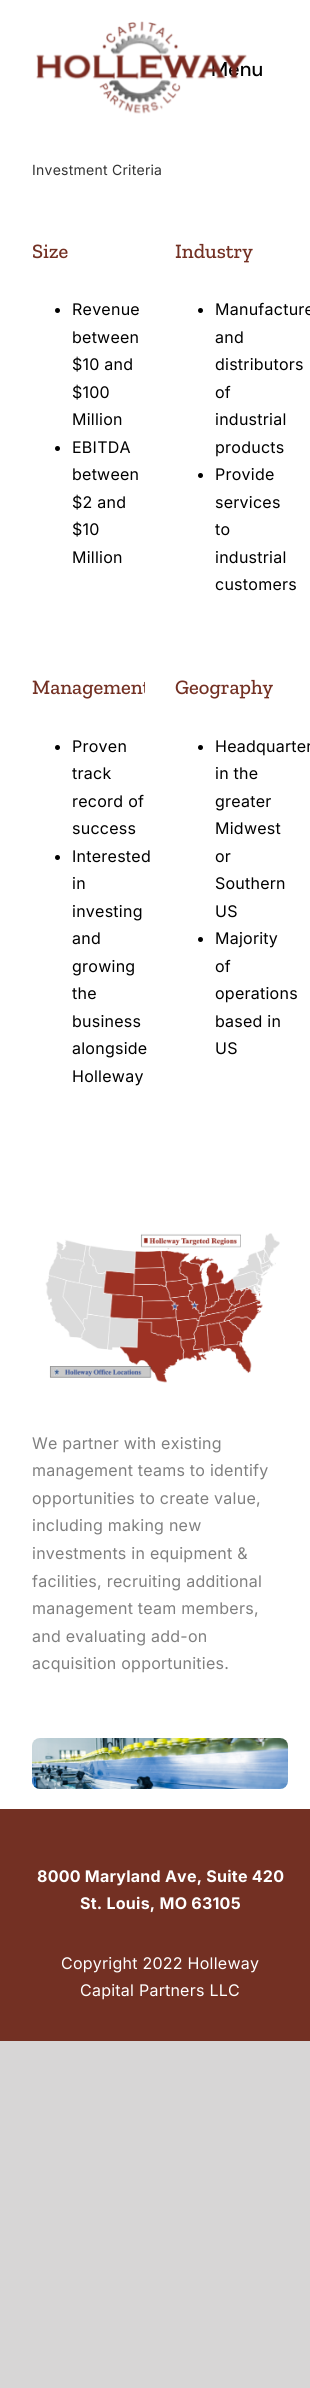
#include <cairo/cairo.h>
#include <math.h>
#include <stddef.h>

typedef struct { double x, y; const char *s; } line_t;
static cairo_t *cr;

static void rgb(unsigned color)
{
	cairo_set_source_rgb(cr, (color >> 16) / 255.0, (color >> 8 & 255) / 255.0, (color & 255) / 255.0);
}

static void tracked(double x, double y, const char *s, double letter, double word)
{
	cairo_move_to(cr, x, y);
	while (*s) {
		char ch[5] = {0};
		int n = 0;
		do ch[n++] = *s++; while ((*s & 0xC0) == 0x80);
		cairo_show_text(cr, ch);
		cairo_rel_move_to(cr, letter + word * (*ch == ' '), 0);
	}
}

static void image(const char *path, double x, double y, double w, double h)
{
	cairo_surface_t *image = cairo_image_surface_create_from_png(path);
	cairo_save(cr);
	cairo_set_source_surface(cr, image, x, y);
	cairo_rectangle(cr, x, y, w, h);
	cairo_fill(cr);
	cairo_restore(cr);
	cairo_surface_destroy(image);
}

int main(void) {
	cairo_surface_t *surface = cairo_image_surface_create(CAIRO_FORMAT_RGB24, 310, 2388);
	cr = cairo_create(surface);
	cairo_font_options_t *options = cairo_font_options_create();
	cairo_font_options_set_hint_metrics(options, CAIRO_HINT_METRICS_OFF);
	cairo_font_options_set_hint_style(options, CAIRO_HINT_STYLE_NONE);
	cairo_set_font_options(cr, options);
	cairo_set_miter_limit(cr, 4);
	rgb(0xd7d6d6);
	cairo_paint(cr);
	rgb(0xffffff);
	cairo_rectangle(cr, 0, 0, 310, 1809);
	cairo_fill(cr);
	rgb(0x000000);
	cairo_arc(cr, 57.5, 310.5, 2.5, 0, 2 * M_PI);
	cairo_fill(cr);
	cairo_arc(cr, 57.5, 448.5, 2.5, 0, 2 * M_PI);
	cairo_fill(cr);
	cairo_arc(cr, 200.5, 310.5, 2.5, 0, 2 * M_PI);
	cairo_fill(cr);
	cairo_arc(cr, 200.5, 475.5, 2.5, 0, 2 * M_PI);
	cairo_fill(cr);
	cairo_arc(cr, 57.5, 747.5, 2.5, 0, 2 * M_PI);
	cairo_fill(cr);
	cairo_arc(cr, 57.5, 857.5, 2.5, 0, 2 * M_PI);
	cairo_fill(cr);
	cairo_arc(cr, 200.5, 747.5, 2.5, 0, 2 * M_PI);
	cairo_fill(cr);
	cairo_arc(cr, 200.5, 939.5, 2.5, 0, 2 * M_PI);
	cairo_fill(cr);
	image("img/2.png", 45, 1233, 235, 150);
	image("img/3.png", 32, 1738, 256, 51);
	rgb(0x733023);
	cairo_rectangle(cr, 0, 1809, 310, 232);
	cairo_fill(cr);
	cairo_select_font_face(cr, "DM Sans Medium", CAIRO_FONT_SLANT_NORMAL, CAIRO_FONT_WEIGHT_NORMAL);
	cairo_set_font_size(cr, 20);
	rgb(0x000000);
	cairo_move_to(cr, 211, 76);
	cairo_show_text(cr, "Menu");
	image("img/1.png", 36, 21, 211, 93);
	cairo_select_font_face(cr, "Inter", CAIRO_FONT_SLANT_NORMAL, CAIRO_FONT_WEIGHT_NORMAL);
	cairo_set_font_size(cr, 14);
	rgb(0x333333);
	tracked(32, 175, "Investment Criteria", 0.25, 0);
	cairo_select_font_face(cr, "Zilla Slab Medium", CAIRO_FONT_SLANT_NORMAL, CAIRO_FONT_WEIGHT_NORMAL);
	cairo_set_font_size(cr, 20.5);
	rgb(0x733023);
	cairo_move_to(cr, 32, 258);
	cairo_show_text(cr, "Size");
	cairo_select_font_face(cr, "Inter", CAIRO_FONT_SLANT_NORMAL, CAIRO_FONT_WEIGHT_NORMAL);
	cairo_set_font_size(cr, 16);
	rgb(0x000000);
	{
		static const line_t items[] = {
			{72, 315, "Revenue"},
			{72, 343, "between"},
			{72, 370, "$10 and"},
			{72, 398, "$100"},
			{72, 425, "Million"},
			{72, 453, "EBITDA"},
			{72, 480, "between"},
			{72, 508, "$2 and"},
			{72, 535, "$10"},
			{72, 563, "Million"},
		};
		for (size_t i = 0; i < sizeof items / sizeof *items; i++) {
			tracked(items[i].x, items[i].y, items[i].s, 0.25, 0);
		}
	}
	cairo_select_font_face(cr, "Zilla Slab Medium", CAIRO_FONT_SLANT_NORMAL, CAIRO_FONT_WEIGHT_NORMAL);
	cairo_set_font_size(cr, 20.5);
	rgb(0x733023);
	cairo_move_to(cr, 175, 258);
	cairo_show_text(cr, "Industry");
	cairo_select_font_face(cr, "Inter", CAIRO_FONT_SLANT_NORMAL, CAIRO_FONT_WEIGHT_NORMAL);
	cairo_set_font_size(cr, 16);
	rgb(0x000000);
	{
		static const line_t items[] = {
			{215, 315, "Manufacture"},
			{215, 343, "and"},
			{215, 370, "distributors"},
			{215, 398, "of"},
			{215, 425, "industrial"},
			{215, 453, "products"},
			{215, 480, "Provide"},
			{215, 508, "services"},
			{215, 535, "to"},
			{215, 563, "industrial"},
			{215, 590, "customers"},
		};
		for (size_t i = 0; i < sizeof items / sizeof *items; i++) {
			tracked(items[i].x, items[i].y, items[i].s, 0.25, 0);
		}
	}
	cairo_save(cr);
	cairo_rectangle(cr, 32, 674, 113, 28);
	cairo_clip(cr);
	cairo_select_font_face(cr, "Zilla Slab Medium", CAIRO_FONT_SLANT_NORMAL, CAIRO_FONT_WEIGHT_NORMAL);
	cairo_set_font_size(cr, 20.5);
	rgb(0x733023);
	cairo_move_to(cr, 32, 694);
	cairo_show_text(cr, "Management");
	cairo_restore(cr);
	{
		static const line_t items[] = {
			{72, 752, "Proven"},
			{72, 779, "track"},
			{72, 807, "record of"},
			{72, 834, "success"},
			{72, 862, "Interested"},
			{72, 889, "in"},
			{72, 917, "investing"},
			{72, 944, "and"},
			{72, 972, "growing"},
			{72, 999, "the"},
			{72, 1027, "business"},
			{72, 1054, "alongside"},
			{72, 1082, "Holleway"},
		};
		for (size_t i = 0; i < sizeof items / sizeof *items; i++) {
			tracked(items[i].x, items[i].y, items[i].s, 0.25, 0);
		}
	}
	cairo_select_font_face(cr, "Zilla Slab Medium", CAIRO_FONT_SLANT_NORMAL, CAIRO_FONT_WEIGHT_NORMAL);
	cairo_set_font_size(cr, 20.5);
	rgb(0x733023);
	cairo_move_to(cr, 175, 694);
	cairo_show_text(cr, "Geography");
	cairo_select_font_face(cr, "Inter", CAIRO_FONT_SLANT_NORMAL, CAIRO_FONT_WEIGHT_NORMAL);
	cairo_set_font_size(cr, 16);
	rgb(0x000000);
	{
		static const line_t items[] = {
			{215, 752, "Headquarter"},
			{215, 779, "in the"},
			{215, 807, "greater"},
			{215, 834, "Midwest"},
			{215, 862, "or"},
			{215, 889, "Southern"},
			{215, 917, "US"},
			{215, 944, "Majority"},
			{215, 972, "of"},
			{215, 999, "operations"},
			{215, 1027, "based in"},
			{215, 1054, "US"},
		};
		for (size_t i = 0; i < sizeof items / sizeof *items; i++) {
			tracked(items[i].x, items[i].y, items[i].s, 0.25, 0);
		}
	}
	rgb(0x7f7f7f);
	{
		static const line_t items[] = {
			{32, 1449, "We partner with existing"},
			{32, 1476, "management teams to identify"},
			{32, 1504, "opportunities to create value,"},
			{32, 1531, "including making new"},
			{32, 1559, "investments in equipment &"},
			{32, 1587, "facilities, recruiting additional"},
			{32, 1614, "management team members,"},
			{32, 1642, "and evaluating add-on"},
			{32, 1669, "acquisition opportunities."},
		};
		for (size_t i = 0; i < sizeof items / sizeof *items; i++) {
			tracked(items[i].x, items[i].y, items[i].s, 0.25, 0);
		}
	}
	cairo_select_font_face(cr, "Inter", CAIRO_FONT_SLANT_NORMAL, CAIRO_FONT_WEIGHT_BOLD);
	rgb(0xffffff);
	tracked(37, 1882, "8000 Maryland Ave, Suite 420", 0.25, 0);
	tracked(80, 1909, "St. Louis, MO 63105", 0.25, 0);
	cairo_select_font_face(cr, "Inter", CAIRO_FONT_SLANT_NORMAL, CAIRO_FONT_WEIGHT_NORMAL);
	tracked(61, 1969, "Copyright 2022 Holleway", 0.25, 0);
	tracked(80, 1996, "Capital Partners LLC", 0.25, 0);
	cairo_surface_write_to_png(surface, "page.png");
	cairo_font_options_destroy(options);
	cairo_destroy(cr);
	cairo_surface_destroy(surface);
	return 0;
}
